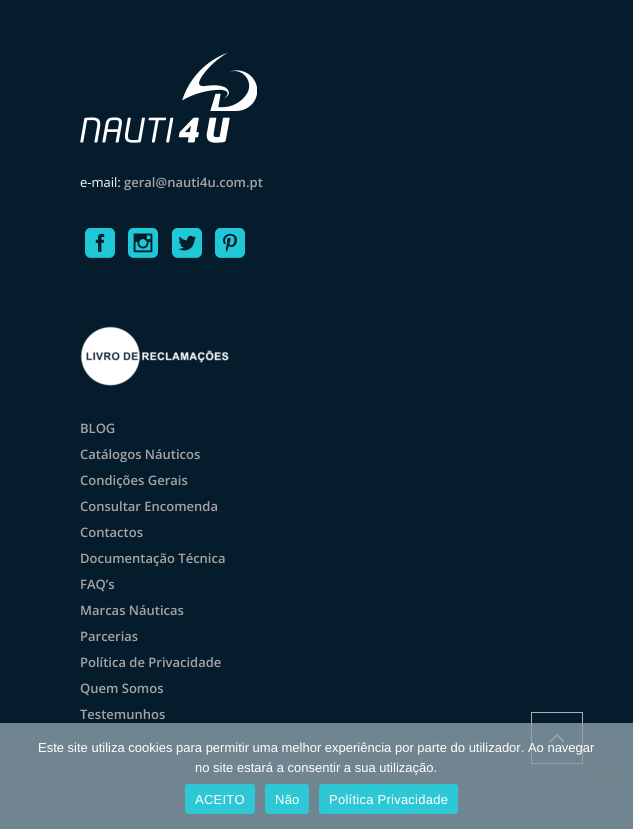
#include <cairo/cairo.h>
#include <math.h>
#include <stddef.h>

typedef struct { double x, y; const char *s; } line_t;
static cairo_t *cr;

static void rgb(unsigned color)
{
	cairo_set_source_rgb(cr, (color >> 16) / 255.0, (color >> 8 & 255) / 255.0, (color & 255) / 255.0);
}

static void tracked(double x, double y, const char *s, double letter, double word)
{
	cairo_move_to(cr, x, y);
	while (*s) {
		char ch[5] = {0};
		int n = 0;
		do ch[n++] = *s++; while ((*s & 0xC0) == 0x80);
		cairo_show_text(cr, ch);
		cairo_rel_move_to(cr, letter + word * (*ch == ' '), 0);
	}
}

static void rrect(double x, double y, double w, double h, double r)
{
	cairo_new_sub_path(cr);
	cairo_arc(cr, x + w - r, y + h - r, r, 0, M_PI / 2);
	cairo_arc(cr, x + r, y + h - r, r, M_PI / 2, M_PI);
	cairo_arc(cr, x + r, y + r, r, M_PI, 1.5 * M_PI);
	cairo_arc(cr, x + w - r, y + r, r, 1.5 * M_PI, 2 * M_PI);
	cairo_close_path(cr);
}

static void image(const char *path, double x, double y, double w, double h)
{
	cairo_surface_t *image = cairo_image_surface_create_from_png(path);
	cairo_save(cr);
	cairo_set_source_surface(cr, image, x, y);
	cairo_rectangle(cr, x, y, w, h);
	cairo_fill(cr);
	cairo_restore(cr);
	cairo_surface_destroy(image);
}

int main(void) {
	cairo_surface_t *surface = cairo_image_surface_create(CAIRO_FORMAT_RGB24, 633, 829);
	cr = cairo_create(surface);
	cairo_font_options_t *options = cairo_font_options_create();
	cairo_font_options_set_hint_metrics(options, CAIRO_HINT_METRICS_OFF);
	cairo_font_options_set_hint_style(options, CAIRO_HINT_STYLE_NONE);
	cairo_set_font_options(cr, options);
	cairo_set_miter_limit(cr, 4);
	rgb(0x041c2c);
	cairo_paint(cr);
	image("img/1.png", 80, 53, 177, 90);
	image("img/2.png", 85, 228, 30, 30);
	image("img/3.png", 128, 228, 30, 30);
	image("img/4.png", 172, 228, 30, 30);
	image("img/5.png", 215, 228, 30, 30);
	image("img/6.png", 80, 326, 149, 60);
	cairo_rectangle(cr, 531.5, 712.5, 51, 51);
	rgb(0xadadad);
	cairo_set_line_width(cr, 1);
	cairo_stroke(cr);
	image("img/7.png", 549, 734, 16, 9);
	cairo_set_source_rgba(cr, 0.549, 0.624, 0.663, 0.8);
	cairo_rectangle(cr, 0, 723, 633, 106);
	cairo_fill(cr);
	rgb(0x788288);
	cairo_new_path(cr);
	cairo_move_to(cr, 613.5, 770.5);
	cairo_line_to(cr, 615, 772);
	cairo_line_to(cr, 604.5, 782.5);
	cairo_line_to(cr, 603, 781);
	cairo_close_path(cr);
	cairo_fill(cr);
	cairo_new_path(cr);
	cairo_move_to(cr, 603, 772);
	cairo_line_to(cr, 604.5, 770.5);
	cairo_line_to(cr, 615, 781);
	cairo_line_to(cr, 613.5, 782.5);
	cairo_close_path(cr);
	cairo_fill(cr);
	rgb(0x2ec7d6);
	rrect(185, 784, 70, 30, 3);
	cairo_fill(cr);
	rrect(265, 784, 44, 30, 3);
	cairo_fill(cr);
	rrect(319, 784, 139, 30, 3);
	cairo_fill(cr);
	cairo_select_font_face(cr, "Open Sans", CAIRO_FONT_SLANT_NORMAL, CAIRO_FONT_WEIGHT_NORMAL);
	cairo_set_font_size(cr, 13);
	rgb(0xffffff);
	cairo_move_to(cr, 80, 187);
	cairo_show_text(cr, "e-mail:");
	cairo_select_font_face(cr, "Open Sans SemiBold", CAIRO_FONT_SLANT_NORMAL, CAIRO_FONT_WEIGHT_NORMAL);
	rgb(0xa4a4a4);
	{
		static const line_t items[] = {
			{124, 187, "geral@nauti4u.com.pt"},
			{80, 433, "BLOG"},
			{80, 459, "Catálogos Náuticos"},
			{80, 485, "Condições Gerais"},
			{80, 511, "Consultar Encomenda"},
			{80, 537, "Contactos"},
			{80, 563, "Documentação Técnica"},
			{80, 589, "FAQ’s"},
			{80, 615, "Marcas Náuticas"},
			{80, 641, "Parcerias"},
			{80, 667, "Política de Privacidade"},
			{80, 693, "Quem Somos"},
			{80, 719, "Testemunhos"},
		};
		for (size_t i = 0; i < sizeof items / sizeof *items; i++) {
			cairo_move_to(cr, items[i].x, items[i].y);
			cairo_show_text(cr, items[i].s);
		}
	}
	cairo_select_font_face(cr, "Liberation Sans", CAIRO_FONT_SLANT_NORMAL, CAIRO_FONT_WEIGHT_NORMAL);
	rgb(0xffffff);
	cairo_move_to(cr, 38, 752);
	cairo_show_text(cr, "Este site utiliza cookies para permitir uma melhor experiência por parte do utilizador. Ao navegar");
	cairo_move_to(cr, 195, 772);
	cairo_show_text(cr, "no site estará a consentir a sua utilização.");
	{
		static const line_t items[] = {
			{195, 804, "ACEITO"},
			{275, 804, "Não"},
			{329, 804, "Política Privacidade"},
		};
		for (size_t i = 0; i < sizeof items / sizeof *items; i++) {
			tracked(items[i].x, items[i].y, items[i].s, 0.25, 0);
		}
	}
	cairo_surface_write_to_png(surface, "page.png");
	cairo_font_options_destroy(options);
	cairo_destroy(cr);
	cairo_surface_destroy(surface);
	return 0;
}
